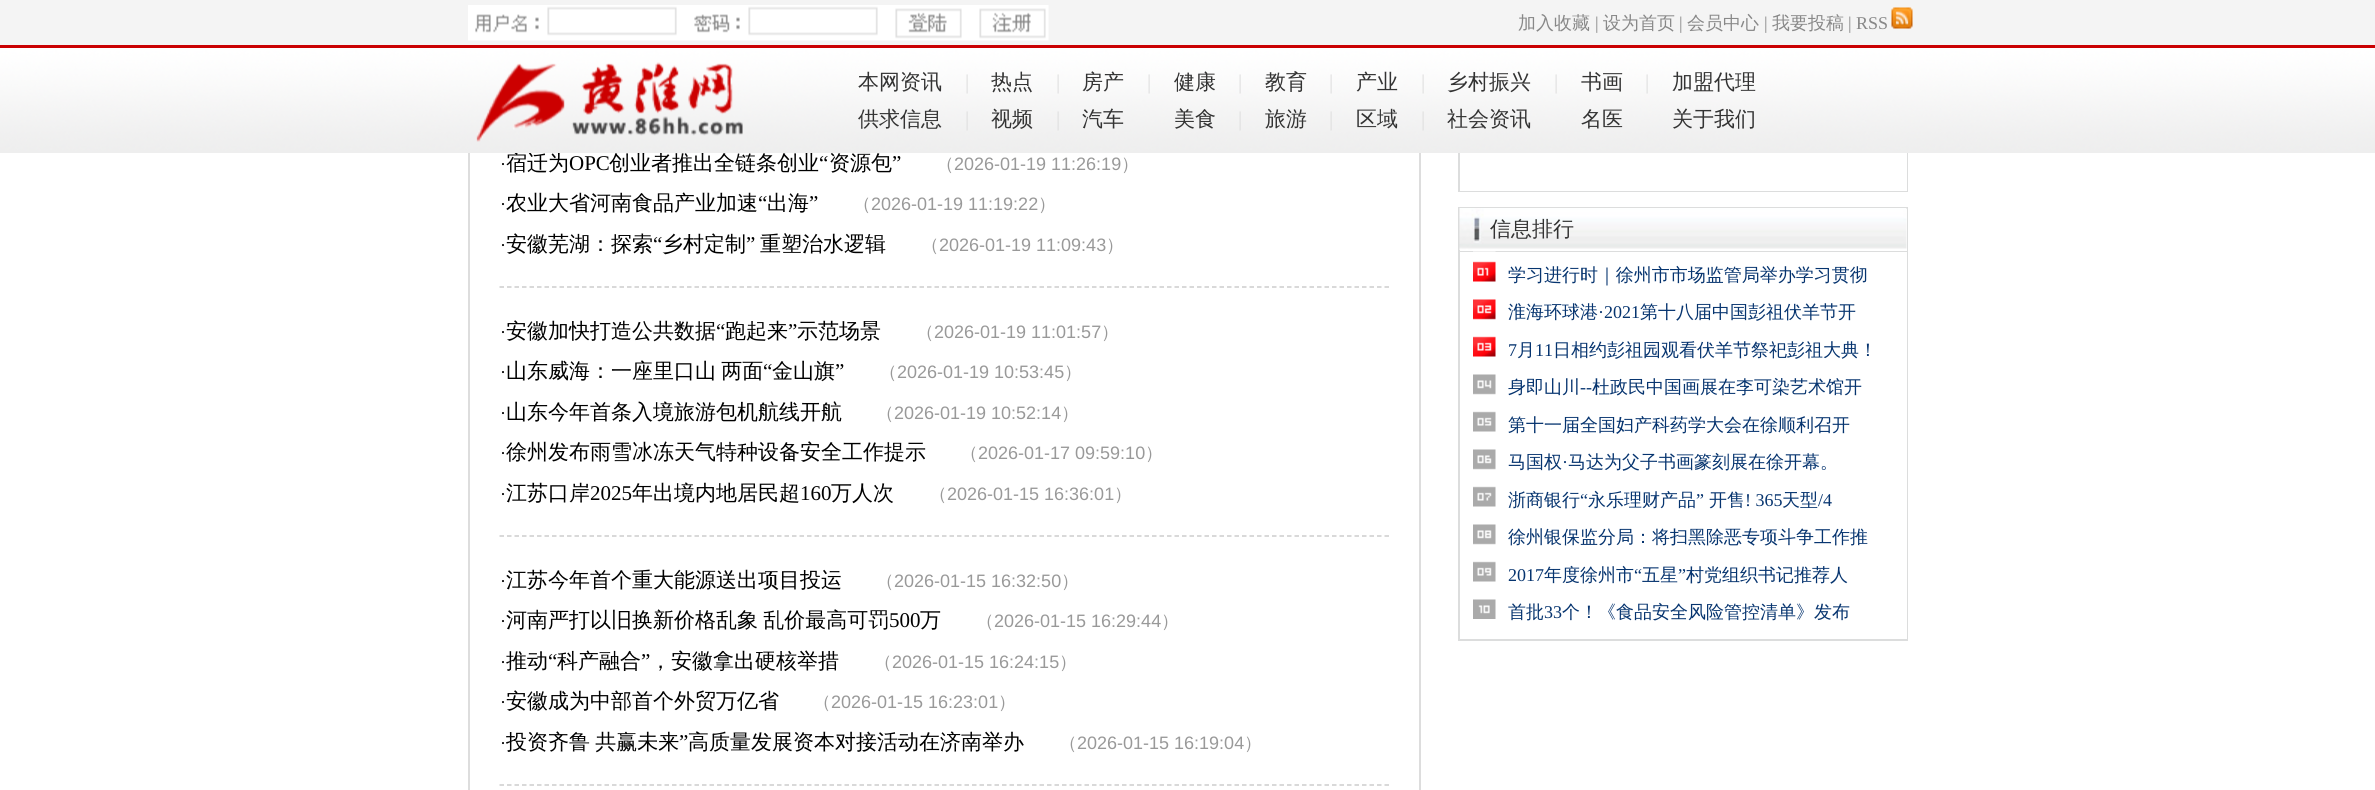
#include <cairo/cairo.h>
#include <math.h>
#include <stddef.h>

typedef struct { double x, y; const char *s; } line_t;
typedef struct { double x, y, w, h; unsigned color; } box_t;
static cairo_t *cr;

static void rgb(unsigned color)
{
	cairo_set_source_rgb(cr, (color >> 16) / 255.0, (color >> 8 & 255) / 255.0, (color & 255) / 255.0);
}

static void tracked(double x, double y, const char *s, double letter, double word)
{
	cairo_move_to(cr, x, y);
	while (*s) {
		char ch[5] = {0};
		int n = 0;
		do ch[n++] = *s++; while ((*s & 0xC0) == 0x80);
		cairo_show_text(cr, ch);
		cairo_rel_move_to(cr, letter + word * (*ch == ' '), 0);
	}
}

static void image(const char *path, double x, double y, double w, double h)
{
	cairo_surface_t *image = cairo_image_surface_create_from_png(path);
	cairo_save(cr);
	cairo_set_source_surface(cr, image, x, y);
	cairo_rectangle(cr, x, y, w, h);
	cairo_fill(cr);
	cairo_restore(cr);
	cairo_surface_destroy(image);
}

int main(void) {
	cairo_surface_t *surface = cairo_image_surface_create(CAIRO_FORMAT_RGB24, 2375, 790);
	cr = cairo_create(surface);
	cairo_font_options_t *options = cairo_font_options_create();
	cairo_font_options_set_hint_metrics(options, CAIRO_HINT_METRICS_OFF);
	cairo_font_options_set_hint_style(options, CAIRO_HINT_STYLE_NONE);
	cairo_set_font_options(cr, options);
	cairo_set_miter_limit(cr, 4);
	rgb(0xffffff);
	cairo_paint(cr);
	rgb(0xf4f4f4);
	cairo_rectangle(cr, 0, 0, 2375, 45);
	cairo_fill(cr);
	image("img/1.png", 468, 5, 581, 36);
	image("img/2.png", 1891, 7, 22, 22);
	{
		static const box_t items[] = {
			{0, 45, 2375, 3, 0xca0002},
			{468, 153, 953, 637, 0xdddddd},
			{470, 153, 949, 637, 0xffffff},
		};
		for (size_t i = 0; i < sizeof items / sizeof *items; i++) {
			rgb(items[i].color);
			cairo_rectangle(cr, items[i].x, items[i].y, items[i].w, items[i].h);
			cairo_fill(cr);
		}
	}
	cairo_new_path(cr);
	cairo_move_to(cr, 499.5, 287);
	cairo_line_to(cr, 1389, 287);
	rgb(0xcccccc);
	cairo_set_line_width(cr, 1.5);
	cairo_set_dash(cr, (double[]){4.5, 3}, 2, 0);
	cairo_stroke(cr);
	cairo_new_path(cr);
	cairo_move_to(cr, 499.5, 536);
	cairo_line_to(cr, 1389, 536);
	cairo_stroke(cr);
	cairo_new_path(cr);
	cairo_move_to(cr, 499.5, 785);
	cairo_line_to(cr, 1389, 785);
	cairo_stroke(cr);
	{
		static const box_t items[] = {
			{1458, 153, 450, 39, 0xdcdddd},
			{1460, 153, 447, 38, 0xffffff},
			{1458, 207, 450, 434, 0xdcdddd},
			{1460, 209, 447, 42, 0xffffff},
		};
		for (size_t i = 0; i < sizeof items / sizeof *items; i++) {
			rgb(items[i].color);
			cairo_rectangle(cr, items[i].x, items[i].y, items[i].w, items[i].h);
			cairo_fill(cr);
		}
	}
	image("img/5.png", 1459, 208, 448, 42);
	cairo_rectangle(cr, 1460, 252, 447, 387);
	cairo_fill(cr);
	image("img/6.png", 1473, 251, 23, 368);
	cairo_select_font_face(cr, "WenQuanYi Zen Hei Medium", CAIRO_FONT_SLANT_NORMAL, CAIRO_FONT_WEIGHT_NORMAL);
	cairo_set_font_size(cr, 18);
	rgb(0x888888);
	cairo_move_to(cr, 1518, 29);
	cairo_show_text(cr, "加入收藏");
	cairo_select_font_face(cr, "Liberation Serif", CAIRO_FONT_SLANT_NORMAL, CAIRO_FONT_WEIGHT_NORMAL);
	cairo_move_to(cr, 1595, 29);
	cairo_show_text(cr, "|");
	cairo_select_font_face(cr, "WenQuanYi Zen Hei Medium", CAIRO_FONT_SLANT_NORMAL, CAIRO_FONT_WEIGHT_NORMAL);
	cairo_move_to(cr, 1603, 29);
	cairo_show_text(cr, "设为首页");
	cairo_select_font_face(cr, "Liberation Serif", CAIRO_FONT_SLANT_NORMAL, CAIRO_FONT_WEIGHT_NORMAL);
	cairo_move_to(cr, 1679, 29);
	cairo_show_text(cr, "|");
	cairo_select_font_face(cr, "WenQuanYi Zen Hei Medium", CAIRO_FONT_SLANT_NORMAL, CAIRO_FONT_WEIGHT_NORMAL);
	cairo_move_to(cr, 1687, 29);
	cairo_show_text(cr, "会员中心");
	cairo_select_font_face(cr, "Liberation Serif", CAIRO_FONT_SLANT_NORMAL, CAIRO_FONT_WEIGHT_NORMAL);
	cairo_move_to(cr, 1764, 29);
	cairo_show_text(cr, "|");
	cairo_select_font_face(cr, "WenQuanYi Zen Hei Medium", CAIRO_FONT_SLANT_NORMAL, CAIRO_FONT_WEIGHT_NORMAL);
	cairo_move_to(cr, 1772, 29);
	cairo_show_text(cr, "我要投稿");
	cairo_select_font_face(cr, "Liberation Serif", CAIRO_FONT_SLANT_NORMAL, CAIRO_FONT_WEIGHT_NORMAL);
	cairo_move_to(cr, 1848, 29);
	cairo_show_text(cr, "| RSS");
	rgb(0x000000);
	cairo_move_to(cr, 500, 170);
	cairo_show_text(cr, "·");
	cairo_select_font_face(cr, "WenQuanYi Zen Hei Medium", CAIRO_FONT_SLANT_NORMAL, CAIRO_FONT_WEIGHT_NORMAL);
	cairo_set_font_size(cr, 21);
	cairo_move_to(cr, 506, 170);
	cairo_show_text(cr, "宿迁为");
	cairo_select_font_face(cr, "Liberation Serif", CAIRO_FONT_SLANT_NORMAL, CAIRO_FONT_WEIGHT_NORMAL);
	cairo_move_to(cr, 569, 170);
	cairo_show_text(cr, "OPC");
	cairo_select_font_face(cr, "WenQuanYi Zen Hei Medium", CAIRO_FONT_SLANT_NORMAL, CAIRO_FONT_WEIGHT_NORMAL);
	cairo_move_to(cr, 609, 170);
	cairo_show_text(cr, "创业者推出全链条创业");
	cairo_select_font_face(cr, "Liberation Serif", CAIRO_FONT_SLANT_NORMAL, CAIRO_FONT_WEIGHT_NORMAL);
	cairo_move_to(cr, 819, 170);
	cairo_show_text(cr, "“");
	cairo_select_font_face(cr, "WenQuanYi Zen Hei Medium", CAIRO_FONT_SLANT_NORMAL, CAIRO_FONT_WEIGHT_NORMAL);
	cairo_move_to(cr, 829, 170);
	cairo_show_text(cr, "资源包");
	image("img/3.png", 0, 48, 2375, 105);
	rgb(0x333333);
	{
		static const line_t items[] = {
			{1672, 126, "关于我们"},
			{1581, 126, "名医"},
			{1447, 126, "社会资讯"},
		};
		for (size_t i = 0; i < sizeof items / sizeof *items; i++) {
			cairo_move_to(cr, items[i].x, items[i].y);
			cairo_show_text(cr, items[i].s);
		}
	}
	cairo_select_font_face(cr, "Liberation Serif", CAIRO_FONT_SLANT_NORMAL, CAIRO_FONT_WEIGHT_NORMAL);
	rgb(0xdddddd);
	cairo_move_to(cr, 1421, 126);
	cairo_show_text(cr, "|");
	cairo_select_font_face(cr, "WenQuanYi Zen Hei Medium", CAIRO_FONT_SLANT_NORMAL, CAIRO_FONT_WEIGHT_NORMAL);
	rgb(0x333333);
	cairo_move_to(cr, 1356, 126);
	cairo_show_text(cr, "区域");
	cairo_select_font_face(cr, "Liberation Serif", CAIRO_FONT_SLANT_NORMAL, CAIRO_FONT_WEIGHT_NORMAL);
	rgb(0xdddddd);
	cairo_move_to(cr, 1329, 126);
	cairo_show_text(cr, "|");
	cairo_select_font_face(cr, "WenQuanYi Zen Hei Medium", CAIRO_FONT_SLANT_NORMAL, CAIRO_FONT_WEIGHT_NORMAL);
	rgb(0x333333);
	cairo_move_to(cr, 1265, 126);
	cairo_show_text(cr, "旅游");
	cairo_select_font_face(cr, "Liberation Serif", CAIRO_FONT_SLANT_NORMAL, CAIRO_FONT_WEIGHT_NORMAL);
	rgb(0xdddddd);
	cairo_move_to(cr, 1238, 126);
	cairo_show_text(cr, "|");
	cairo_select_font_face(cr, "WenQuanYi Zen Hei Medium", CAIRO_FONT_SLANT_NORMAL, CAIRO_FONT_WEIGHT_NORMAL);
	rgb(0x333333);
	cairo_move_to(cr, 1174, 126);
	cairo_show_text(cr, "美食");
	cairo_move_to(cr, 1082, 126);
	cairo_show_text(cr, "汽车");
	cairo_select_font_face(cr, "Liberation Serif", CAIRO_FONT_SLANT_NORMAL, CAIRO_FONT_WEIGHT_NORMAL);
	rgb(0xdddddd);
	cairo_move_to(cr, 1056, 126);
	cairo_show_text(cr, "|");
	cairo_select_font_face(cr, "WenQuanYi Zen Hei Medium", CAIRO_FONT_SLANT_NORMAL, CAIRO_FONT_WEIGHT_NORMAL);
	rgb(0x333333);
	cairo_move_to(cr, 991, 126);
	cairo_show_text(cr, "视频");
	cairo_select_font_face(cr, "Liberation Serif", CAIRO_FONT_SLANT_NORMAL, CAIRO_FONT_WEIGHT_NORMAL);
	rgb(0xdddddd);
	cairo_move_to(cr, 965, 126);
	cairo_show_text(cr, "|");
	cairo_select_font_face(cr, "WenQuanYi Zen Hei Medium", CAIRO_FONT_SLANT_NORMAL, CAIRO_FONT_WEIGHT_NORMAL);
	rgb(0x333333);
	cairo_move_to(cr, 858, 126);
	cairo_show_text(cr, "供求信息");
	cairo_move_to(cr, 1672, 89);
	cairo_show_text(cr, "加盟代理");
	cairo_select_font_face(cr, "Liberation Serif", CAIRO_FONT_SLANT_NORMAL, CAIRO_FONT_WEIGHT_NORMAL);
	rgb(0xdddddd);
	cairo_move_to(cr, 1645, 89);
	cairo_show_text(cr, "|");
	cairo_select_font_face(cr, "WenQuanYi Zen Hei Medium", CAIRO_FONT_SLANT_NORMAL, CAIRO_FONT_WEIGHT_NORMAL);
	rgb(0x333333);
	cairo_move_to(cr, 1581, 89);
	cairo_show_text(cr, "书画");
	cairo_select_font_face(cr, "Liberation Serif", CAIRO_FONT_SLANT_NORMAL, CAIRO_FONT_WEIGHT_NORMAL);
	rgb(0xdddddd);
	cairo_move_to(cr, 1554, 89);
	cairo_show_text(cr, "|");
	cairo_select_font_face(cr, "WenQuanYi Zen Hei Medium", CAIRO_FONT_SLANT_NORMAL, CAIRO_FONT_WEIGHT_NORMAL);
	rgb(0x333333);
	cairo_move_to(cr, 1447, 89);
	cairo_show_text(cr, "乡村振兴");
	cairo_select_font_face(cr, "Liberation Serif", CAIRO_FONT_SLANT_NORMAL, CAIRO_FONT_WEIGHT_NORMAL);
	rgb(0xdddddd);
	cairo_move_to(cr, 1421, 89);
	cairo_show_text(cr, "|");
	cairo_select_font_face(cr, "WenQuanYi Zen Hei Medium", CAIRO_FONT_SLANT_NORMAL, CAIRO_FONT_WEIGHT_NORMAL);
	rgb(0x333333);
	cairo_move_to(cr, 1356, 89);
	cairo_show_text(cr, "产业");
	cairo_select_font_face(cr, "Liberation Serif", CAIRO_FONT_SLANT_NORMAL, CAIRO_FONT_WEIGHT_NORMAL);
	rgb(0xdddddd);
	cairo_move_to(cr, 1329, 89);
	cairo_show_text(cr, "|");
	cairo_select_font_face(cr, "WenQuanYi Zen Hei Medium", CAIRO_FONT_SLANT_NORMAL, CAIRO_FONT_WEIGHT_NORMAL);
	rgb(0x333333);
	cairo_move_to(cr, 1265, 89);
	cairo_show_text(cr, "教育");
	cairo_select_font_face(cr, "Liberation Serif", CAIRO_FONT_SLANT_NORMAL, CAIRO_FONT_WEIGHT_NORMAL);
	rgb(0xdddddd);
	cairo_move_to(cr, 1238, 89);
	cairo_show_text(cr, "|");
	cairo_select_font_face(cr, "WenQuanYi Zen Hei Medium", CAIRO_FONT_SLANT_NORMAL, CAIRO_FONT_WEIGHT_NORMAL);
	rgb(0x333333);
	cairo_move_to(cr, 1174, 89);
	cairo_show_text(cr, "健康");
	cairo_select_font_face(cr, "Liberation Serif", CAIRO_FONT_SLANT_NORMAL, CAIRO_FONT_WEIGHT_NORMAL);
	rgb(0xdddddd);
	cairo_move_to(cr, 1147, 89);
	cairo_show_text(cr, "|");
	cairo_select_font_face(cr, "WenQuanYi Zen Hei Medium", CAIRO_FONT_SLANT_NORMAL, CAIRO_FONT_WEIGHT_NORMAL);
	rgb(0x333333);
	cairo_move_to(cr, 1082, 89);
	cairo_show_text(cr, "房产");
	cairo_select_font_face(cr, "Liberation Serif", CAIRO_FONT_SLANT_NORMAL, CAIRO_FONT_WEIGHT_NORMAL);
	rgb(0xdddddd);
	cairo_move_to(cr, 1056, 89);
	cairo_show_text(cr, "|");
	cairo_select_font_face(cr, "WenQuanYi Zen Hei Medium", CAIRO_FONT_SLANT_NORMAL, CAIRO_FONT_WEIGHT_NORMAL);
	rgb(0x333333);
	cairo_move_to(cr, 991, 89);
	cairo_show_text(cr, "热点");
	cairo_select_font_face(cr, "Liberation Serif", CAIRO_FONT_SLANT_NORMAL, CAIRO_FONT_WEIGHT_NORMAL);
	rgb(0xdddddd);
	cairo_move_to(cr, 965, 89);
	cairo_show_text(cr, "|");
	cairo_select_font_face(cr, "WenQuanYi Zen Hei Medium", CAIRO_FONT_SLANT_NORMAL, CAIRO_FONT_WEIGHT_NORMAL);
	rgb(0x333333);
	cairo_move_to(cr, 858, 89);
	cairo_show_text(cr, "本网资讯");
	image("img/4.png", 476, 62, 267, 80);
	cairo_select_font_face(cr, "Liberation Serif", CAIRO_FONT_SLANT_NORMAL, CAIRO_FONT_WEIGHT_NORMAL);
	rgb(0x000000);
	cairo_move_to(cr, 892, 170);
	cairo_show_text(cr, "”");
	cairo_select_font_face(cr, "WenQuanYi Zen Hei Medium", CAIRO_FONT_SLANT_NORMAL, CAIRO_FONT_WEIGHT_NORMAL);
	cairo_set_font_size(cr, 18);
	rgb(0x999999);
	cairo_move_to(cr, 936, 170);
	cairo_show_text(cr, "（");
	cairo_select_font_face(cr, "Liberation Sans", CAIRO_FONT_SLANT_NORMAL, CAIRO_FONT_WEIGHT_NORMAL);
	cairo_move_to(cr, 954, 170);
	cairo_show_text(cr, "2026-01-19 11:26:19");
	cairo_select_font_face(cr, "WenQuanYi Zen Hei Medium", CAIRO_FONT_SLANT_NORMAL, CAIRO_FONT_WEIGHT_NORMAL);
	cairo_move_to(cr, 1121, 170);
	cairo_show_text(cr, "）");
	cairo_select_font_face(cr, "Liberation Serif", CAIRO_FONT_SLANT_NORMAL, CAIRO_FONT_WEIGHT_NORMAL);
	rgb(0x000000);
	cairo_move_to(cr, 500, 210);
	cairo_show_text(cr, "·");
	cairo_select_font_face(cr, "WenQuanYi Zen Hei Medium", CAIRO_FONT_SLANT_NORMAL, CAIRO_FONT_WEIGHT_NORMAL);
	cairo_set_font_size(cr, 21);
	cairo_move_to(cr, 506, 210);
	cairo_show_text(cr, "农业大省河南食品产业加速");
	cairo_select_font_face(cr, "Liberation Serif", CAIRO_FONT_SLANT_NORMAL, CAIRO_FONT_WEIGHT_NORMAL);
	cairo_move_to(cr, 758, 210);
	cairo_show_text(cr, "“");
	cairo_select_font_face(cr, "WenQuanYi Zen Hei Medium", CAIRO_FONT_SLANT_NORMAL, CAIRO_FONT_WEIGHT_NORMAL);
	cairo_move_to(cr, 767, 210);
	cairo_show_text(cr, "出海");
	cairo_select_font_face(cr, "Liberation Serif", CAIRO_FONT_SLANT_NORMAL, CAIRO_FONT_WEIGHT_NORMAL);
	cairo_move_to(cr, 809, 210);
	cairo_show_text(cr, "”");
	cairo_select_font_face(cr, "WenQuanYi Zen Hei Medium", CAIRO_FONT_SLANT_NORMAL, CAIRO_FONT_WEIGHT_NORMAL);
	cairo_set_font_size(cr, 18);
	rgb(0x999999);
	cairo_move_to(cr, 853, 210);
	cairo_show_text(cr, "（");
	cairo_select_font_face(cr, "Liberation Sans", CAIRO_FONT_SLANT_NORMAL, CAIRO_FONT_WEIGHT_NORMAL);
	cairo_move_to(cr, 871, 210);
	cairo_show_text(cr, "2026-01-19 11:19:22");
	cairo_select_font_face(cr, "WenQuanYi Zen Hei Medium", CAIRO_FONT_SLANT_NORMAL, CAIRO_FONT_WEIGHT_NORMAL);
	cairo_move_to(cr, 1038, 210);
	cairo_show_text(cr, "）");
	cairo_select_font_face(cr, "Liberation Serif", CAIRO_FONT_SLANT_NORMAL, CAIRO_FONT_WEIGHT_NORMAL);
	rgb(0x000000);
	cairo_move_to(cr, 500, 251);
	cairo_show_text(cr, "·");
	cairo_select_font_face(cr, "WenQuanYi Zen Hei Medium", CAIRO_FONT_SLANT_NORMAL, CAIRO_FONT_WEIGHT_NORMAL);
	cairo_set_font_size(cr, 21);
	cairo_move_to(cr, 506, 251);
	cairo_show_text(cr, "安徽芜湖：探索");
	cairo_select_font_face(cr, "Liberation Serif", CAIRO_FONT_SLANT_NORMAL, CAIRO_FONT_WEIGHT_NORMAL);
	cairo_move_to(cr, 653, 251);
	cairo_show_text(cr, "“");
	cairo_select_font_face(cr, "WenQuanYi Zen Hei Medium", CAIRO_FONT_SLANT_NORMAL, CAIRO_FONT_WEIGHT_NORMAL);
	cairo_move_to(cr, 662, 251);
	cairo_show_text(cr, "乡村定制");
	cairo_select_font_face(cr, "Liberation Serif", CAIRO_FONT_SLANT_NORMAL, CAIRO_FONT_WEIGHT_NORMAL);
	cairo_move_to(cr, 746, 251);
	cairo_show_text(cr, "”");
	cairo_select_font_face(cr, "WenQuanYi Zen Hei Medium", CAIRO_FONT_SLANT_NORMAL, CAIRO_FONT_WEIGHT_NORMAL);
	cairo_move_to(cr, 760, 251);
	cairo_show_text(cr, "重塑治水逻辑");
	cairo_set_font_size(cr, 18);
	rgb(0x999999);
	cairo_move_to(cr, 921, 251);
	cairo_show_text(cr, "（");
	cairo_select_font_face(cr, "Liberation Sans", CAIRO_FONT_SLANT_NORMAL, CAIRO_FONT_WEIGHT_NORMAL);
	cairo_move_to(cr, 939, 251);
	cairo_show_text(cr, "2026-01-19 11:09:43");
	cairo_select_font_face(cr, "WenQuanYi Zen Hei Medium", CAIRO_FONT_SLANT_NORMAL, CAIRO_FONT_WEIGHT_NORMAL);
	cairo_move_to(cr, 1106, 251);
	cairo_show_text(cr, "）");
	cairo_select_font_face(cr, "Liberation Serif", CAIRO_FONT_SLANT_NORMAL, CAIRO_FONT_WEIGHT_NORMAL);
	rgb(0x000000);
	cairo_move_to(cr, 500, 338);
	cairo_show_text(cr, "·");
	cairo_select_font_face(cr, "WenQuanYi Zen Hei Medium", CAIRO_FONT_SLANT_NORMAL, CAIRO_FONT_WEIGHT_NORMAL);
	cairo_set_font_size(cr, 21);
	cairo_move_to(cr, 506, 338);
	cairo_show_text(cr, "安徽加快打造公共数据");
	cairo_select_font_face(cr, "Liberation Serif", CAIRO_FONT_SLANT_NORMAL, CAIRO_FONT_WEIGHT_NORMAL);
	cairo_move_to(cr, 716, 338);
	cairo_show_text(cr, "“");
	cairo_select_font_face(cr, "WenQuanYi Zen Hei Medium", CAIRO_FONT_SLANT_NORMAL, CAIRO_FONT_WEIGHT_NORMAL);
	cairo_move_to(cr, 725, 338);
	cairo_show_text(cr, "跑起来");
	cairo_select_font_face(cr, "Liberation Serif", CAIRO_FONT_SLANT_NORMAL, CAIRO_FONT_WEIGHT_NORMAL);
	cairo_move_to(cr, 788, 338);
	cairo_show_text(cr, "”");
	cairo_select_font_face(cr, "WenQuanYi Zen Hei Medium", CAIRO_FONT_SLANT_NORMAL, CAIRO_FONT_WEIGHT_NORMAL);
	cairo_move_to(cr, 797, 338);
	cairo_show_text(cr, "示范场景");
	cairo_set_font_size(cr, 18);
	rgb(0x999999);
	cairo_move_to(cr, 916, 338);
	cairo_show_text(cr, "（");
	cairo_select_font_face(cr, "Liberation Sans", CAIRO_FONT_SLANT_NORMAL, CAIRO_FONT_WEIGHT_NORMAL);
	cairo_move_to(cr, 934, 338);
	cairo_show_text(cr, "2026-01-19 11:01:57");
	cairo_select_font_face(cr, "WenQuanYi Zen Hei Medium", CAIRO_FONT_SLANT_NORMAL, CAIRO_FONT_WEIGHT_NORMAL);
	cairo_move_to(cr, 1101, 338);
	cairo_show_text(cr, "）");
	cairo_select_font_face(cr, "Liberation Serif", CAIRO_FONT_SLANT_NORMAL, CAIRO_FONT_WEIGHT_NORMAL);
	rgb(0x000000);
	cairo_move_to(cr, 500, 378);
	cairo_show_text(cr, "·");
	cairo_select_font_face(cr, "WenQuanYi Zen Hei Medium", CAIRO_FONT_SLANT_NORMAL, CAIRO_FONT_WEIGHT_NORMAL);
	cairo_set_font_size(cr, 21);
	tracked(506, 378, "山东威海：一座里口山 两面", 0, -1);
	cairo_select_font_face(cr, "Liberation Serif", CAIRO_FONT_SLANT_NORMAL, CAIRO_FONT_WEIGHT_NORMAL);
	cairo_move_to(cr, 763, 378);
	cairo_show_text(cr, "“");
	cairo_select_font_face(cr, "WenQuanYi Zen Hei Medium", CAIRO_FONT_SLANT_NORMAL, CAIRO_FONT_WEIGHT_NORMAL);
	cairo_move_to(cr, 772, 378);
	cairo_show_text(cr, "金山旗");
	cairo_select_font_face(cr, "Liberation Serif", CAIRO_FONT_SLANT_NORMAL, CAIRO_FONT_WEIGHT_NORMAL);
	cairo_move_to(cr, 835, 378);
	cairo_show_text(cr, "”");
	cairo_select_font_face(cr, "WenQuanYi Zen Hei Medium", CAIRO_FONT_SLANT_NORMAL, CAIRO_FONT_WEIGHT_NORMAL);
	cairo_set_font_size(cr, 18);
	rgb(0x999999);
	cairo_move_to(cr, 879, 378);
	cairo_show_text(cr, "（");
	cairo_select_font_face(cr, "Liberation Sans", CAIRO_FONT_SLANT_NORMAL, CAIRO_FONT_WEIGHT_NORMAL);
	cairo_move_to(cr, 897, 378);
	cairo_show_text(cr, "2026-01-19 10:53:45");
	cairo_select_font_face(cr, "WenQuanYi Zen Hei Medium", CAIRO_FONT_SLANT_NORMAL, CAIRO_FONT_WEIGHT_NORMAL);
	cairo_move_to(cr, 1064, 378);
	cairo_show_text(cr, "）");
	cairo_select_font_face(cr, "Liberation Serif", CAIRO_FONT_SLANT_NORMAL, CAIRO_FONT_WEIGHT_NORMAL);
	rgb(0x000000);
	cairo_move_to(cr, 500, 419);
	cairo_show_text(cr, "·");
	cairo_select_font_face(cr, "WenQuanYi Zen Hei Medium", CAIRO_FONT_SLANT_NORMAL, CAIRO_FONT_WEIGHT_NORMAL);
	cairo_set_font_size(cr, 21);
	cairo_move_to(cr, 506, 419);
	cairo_show_text(cr, "山东今年首条入境旅游包机航线开航");
	cairo_set_font_size(cr, 18);
	rgb(0x999999);
	cairo_move_to(cr, 876, 419);
	cairo_show_text(cr, "（");
	cairo_select_font_face(cr, "Liberation Sans", CAIRO_FONT_SLANT_NORMAL, CAIRO_FONT_WEIGHT_NORMAL);
	cairo_move_to(cr, 894, 419);
	cairo_show_text(cr, "2026-01-19 10:52:14");
	cairo_select_font_face(cr, "WenQuanYi Zen Hei Medium", CAIRO_FONT_SLANT_NORMAL, CAIRO_FONT_WEIGHT_NORMAL);
	cairo_move_to(cr, 1061, 419);
	cairo_show_text(cr, "）");
	cairo_select_font_face(cr, "Liberation Serif", CAIRO_FONT_SLANT_NORMAL, CAIRO_FONT_WEIGHT_NORMAL);
	rgb(0x000000);
	cairo_move_to(cr, 500, 459);
	cairo_show_text(cr, "·");
	cairo_select_font_face(cr, "WenQuanYi Zen Hei Medium", CAIRO_FONT_SLANT_NORMAL, CAIRO_FONT_WEIGHT_NORMAL);
	cairo_set_font_size(cr, 21);
	cairo_move_to(cr, 506, 459);
	cairo_show_text(cr, "徐州发布雨雪冰冻天气特种设备安全工作提示");
	cairo_set_font_size(cr, 18);
	rgb(0x999999);
	cairo_move_to(cr, 960, 459);
	cairo_show_text(cr, "（");
	cairo_select_font_face(cr, "Liberation Sans", CAIRO_FONT_SLANT_NORMAL, CAIRO_FONT_WEIGHT_NORMAL);
	cairo_move_to(cr, 978, 459);
	cairo_show_text(cr, "2026-01-17 09:59:10");
	cairo_select_font_face(cr, "WenQuanYi Zen Hei Medium", CAIRO_FONT_SLANT_NORMAL, CAIRO_FONT_WEIGHT_NORMAL);
	cairo_move_to(cr, 1145, 459);
	cairo_show_text(cr, "）");
	cairo_select_font_face(cr, "Liberation Serif", CAIRO_FONT_SLANT_NORMAL, CAIRO_FONT_WEIGHT_NORMAL);
	rgb(0x000000);
	cairo_move_to(cr, 500, 500);
	cairo_show_text(cr, "·");
	cairo_select_font_face(cr, "WenQuanYi Zen Hei Medium", CAIRO_FONT_SLANT_NORMAL, CAIRO_FONT_WEIGHT_NORMAL);
	cairo_set_font_size(cr, 21);
	cairo_move_to(cr, 506, 500);
	cairo_show_text(cr, "江苏口岸");
	cairo_select_font_face(cr, "Liberation Serif", CAIRO_FONT_SLANT_NORMAL, CAIRO_FONT_WEIGHT_NORMAL);
	cairo_move_to(cr, 590, 500);
	cairo_show_text(cr, "2025");
	cairo_select_font_face(cr, "WenQuanYi Zen Hei Medium", CAIRO_FONT_SLANT_NORMAL, CAIRO_FONT_WEIGHT_NORMAL);
	cairo_move_to(cr, 632, 500);
	cairo_show_text(cr, "年出境内地居民超");
	cairo_select_font_face(cr, "Liberation Serif", CAIRO_FONT_SLANT_NORMAL, CAIRO_FONT_WEIGHT_NORMAL);
	cairo_move_to(cr, 800, 500);
	cairo_show_text(cr, "160");
	cairo_select_font_face(cr, "WenQuanYi Zen Hei Medium", CAIRO_FONT_SLANT_NORMAL, CAIRO_FONT_WEIGHT_NORMAL);
	cairo_move_to(cr, 831, 500);
	cairo_show_text(cr, "万人次");
	cairo_set_font_size(cr, 18);
	rgb(0x999999);
	cairo_move_to(cr, 929, 500);
	cairo_show_text(cr, "（");
	cairo_select_font_face(cr, "Liberation Sans", CAIRO_FONT_SLANT_NORMAL, CAIRO_FONT_WEIGHT_NORMAL);
	cairo_move_to(cr, 947, 500);
	cairo_show_text(cr, "2026-01-15 16:36:01");
	cairo_select_font_face(cr, "WenQuanYi Zen Hei Medium", CAIRO_FONT_SLANT_NORMAL, CAIRO_FONT_WEIGHT_NORMAL);
	cairo_move_to(cr, 1114, 500);
	cairo_show_text(cr, "）");
	cairo_select_font_face(cr, "Liberation Serif", CAIRO_FONT_SLANT_NORMAL, CAIRO_FONT_WEIGHT_NORMAL);
	rgb(0x000000);
	cairo_move_to(cr, 500, 587);
	cairo_show_text(cr, "·");
	cairo_select_font_face(cr, "WenQuanYi Zen Hei Medium", CAIRO_FONT_SLANT_NORMAL, CAIRO_FONT_WEIGHT_NORMAL);
	cairo_set_font_size(cr, 21);
	cairo_move_to(cr, 506, 587);
	cairo_show_text(cr, "江苏今年首个重大能源送出项目投运");
	cairo_set_font_size(cr, 18);
	rgb(0x999999);
	cairo_move_to(cr, 876, 587);
	cairo_show_text(cr, "（");
	cairo_select_font_face(cr, "Liberation Sans", CAIRO_FONT_SLANT_NORMAL, CAIRO_FONT_WEIGHT_NORMAL);
	cairo_move_to(cr, 894, 587);
	cairo_show_text(cr, "2026-01-15 16:32:50");
	cairo_select_font_face(cr, "WenQuanYi Zen Hei Medium", CAIRO_FONT_SLANT_NORMAL, CAIRO_FONT_WEIGHT_NORMAL);
	cairo_move_to(cr, 1061, 587);
	cairo_show_text(cr, "）");
	cairo_select_font_face(cr, "Liberation Serif", CAIRO_FONT_SLANT_NORMAL, CAIRO_FONT_WEIGHT_NORMAL);
	rgb(0x000000);
	cairo_move_to(cr, 500, 627);
	cairo_show_text(cr, "·");
	cairo_select_font_face(cr, "WenQuanYi Zen Hei Medium", CAIRO_FONT_SLANT_NORMAL, CAIRO_FONT_WEIGHT_NORMAL);
	cairo_set_font_size(cr, 21);
	tracked(506, 627, "河南严打以旧换新价格乱象 乱价最高可罚", 0, -1);
	cairo_select_font_face(cr, "Liberation Serif", CAIRO_FONT_SLANT_NORMAL, CAIRO_FONT_WEIGHT_NORMAL);
	cairo_move_to(cr, 889, 627);
	cairo_show_text(cr, "500");
	cairo_select_font_face(cr, "WenQuanYi Zen Hei Medium", CAIRO_FONT_SLANT_NORMAL, CAIRO_FONT_WEIGHT_NORMAL);
	cairo_move_to(cr, 920, 627);
	cairo_show_text(cr, "万");
	cairo_set_font_size(cr, 18);
	rgb(0x999999);
	cairo_move_to(cr, 976, 627);
	cairo_show_text(cr, "（");
	cairo_select_font_face(cr, "Liberation Sans", CAIRO_FONT_SLANT_NORMAL, CAIRO_FONT_WEIGHT_NORMAL);
	cairo_move_to(cr, 994, 627);
	cairo_show_text(cr, "2026-01-15 16:29:44");
	cairo_select_font_face(cr, "WenQuanYi Zen Hei Medium", CAIRO_FONT_SLANT_NORMAL, CAIRO_FONT_WEIGHT_NORMAL);
	cairo_move_to(cr, 1161, 627);
	cairo_show_text(cr, "）");
	cairo_select_font_face(cr, "Liberation Serif", CAIRO_FONT_SLANT_NORMAL, CAIRO_FONT_WEIGHT_NORMAL);
	rgb(0x000000);
	cairo_move_to(cr, 500, 668);
	cairo_show_text(cr, "·");
	cairo_select_font_face(cr, "WenQuanYi Zen Hei Medium", CAIRO_FONT_SLANT_NORMAL, CAIRO_FONT_WEIGHT_NORMAL);
	cairo_set_font_size(cr, 21);
	cairo_move_to(cr, 506, 668);
	cairo_show_text(cr, "推动");
	cairo_select_font_face(cr, "Liberation Serif", CAIRO_FONT_SLANT_NORMAL, CAIRO_FONT_WEIGHT_NORMAL);
	cairo_move_to(cr, 548, 668);
	cairo_show_text(cr, "“");
	cairo_select_font_face(cr, "WenQuanYi Zen Hei Medium", CAIRO_FONT_SLANT_NORMAL, CAIRO_FONT_WEIGHT_NORMAL);
	cairo_move_to(cr, 557, 668);
	cairo_show_text(cr, "科产融合");
	cairo_select_font_face(cr, "Liberation Serif", CAIRO_FONT_SLANT_NORMAL, CAIRO_FONT_WEIGHT_NORMAL);
	cairo_move_to(cr, 641, 668);
	cairo_show_text(cr, "”");
	cairo_select_font_face(cr, "WenQuanYi Zen Hei Medium", CAIRO_FONT_SLANT_NORMAL, CAIRO_FONT_WEIGHT_NORMAL);
	cairo_move_to(cr, 650, 668);
	cairo_show_text(cr, "，安徽拿出硬核举措");
	cairo_set_font_size(cr, 18);
	rgb(0x999999);
	cairo_move_to(cr, 874, 668);
	cairo_show_text(cr, "（");
	cairo_select_font_face(cr, "Liberation Sans", CAIRO_FONT_SLANT_NORMAL, CAIRO_FONT_WEIGHT_NORMAL);
	cairo_move_to(cr, 892, 668);
	cairo_show_text(cr, "2026-01-15 16:24:15");
	cairo_select_font_face(cr, "WenQuanYi Zen Hei Medium", CAIRO_FONT_SLANT_NORMAL, CAIRO_FONT_WEIGHT_NORMAL);
	cairo_move_to(cr, 1059, 668);
	cairo_show_text(cr, "）");
	cairo_select_font_face(cr, "Liberation Serif", CAIRO_FONT_SLANT_NORMAL, CAIRO_FONT_WEIGHT_NORMAL);
	rgb(0x000000);
	cairo_move_to(cr, 500, 708);
	cairo_show_text(cr, "·");
	cairo_select_font_face(cr, "WenQuanYi Zen Hei Medium", CAIRO_FONT_SLANT_NORMAL, CAIRO_FONT_WEIGHT_NORMAL);
	cairo_set_font_size(cr, 21);
	cairo_move_to(cr, 506, 708);
	cairo_show_text(cr, "安徽成为中部首个外贸万亿省");
	cairo_set_font_size(cr, 18);
	rgb(0x999999);
	cairo_move_to(cr, 813, 708);
	cairo_show_text(cr, "（");
	cairo_select_font_face(cr, "Liberation Sans", CAIRO_FONT_SLANT_NORMAL, CAIRO_FONT_WEIGHT_NORMAL);
	cairo_move_to(cr, 831, 708);
	cairo_show_text(cr, "2026-01-15 16:23:01");
	cairo_select_font_face(cr, "WenQuanYi Zen Hei Medium", CAIRO_FONT_SLANT_NORMAL, CAIRO_FONT_WEIGHT_NORMAL);
	cairo_move_to(cr, 998, 708);
	cairo_show_text(cr, "）");
	cairo_select_font_face(cr, "Liberation Serif", CAIRO_FONT_SLANT_NORMAL, CAIRO_FONT_WEIGHT_NORMAL);
	rgb(0x000000);
	cairo_move_to(cr, 500, 749);
	cairo_show_text(cr, "·");
	cairo_select_font_face(cr, "WenQuanYi Zen Hei Medium", CAIRO_FONT_SLANT_NORMAL, CAIRO_FONT_WEIGHT_NORMAL);
	cairo_set_font_size(cr, 21);
	tracked(506, 749, "投资齐鲁 共赢未来", 0, -1);
	cairo_select_font_face(cr, "Liberation Serif", CAIRO_FONT_SLANT_NORMAL, CAIRO_FONT_WEIGHT_NORMAL);
	cairo_move_to(cr, 679, 749);
	cairo_show_text(cr, "”");
	cairo_select_font_face(cr, "WenQuanYi Zen Hei Medium", CAIRO_FONT_SLANT_NORMAL, CAIRO_FONT_WEIGHT_NORMAL);
	cairo_move_to(cr, 688, 749);
	cairo_show_text(cr, "高质量发展资本对接活动在济南举办");
	cairo_set_font_size(cr, 18);
	rgb(0x999999);
	cairo_move_to(cr, 1059, 749);
	cairo_show_text(cr, "（");
	cairo_select_font_face(cr, "Liberation Sans", CAIRO_FONT_SLANT_NORMAL, CAIRO_FONT_WEIGHT_NORMAL);
	cairo_move_to(cr, 1077, 749);
	cairo_show_text(cr, "2026-01-15 16:19:04");
	cairo_select_font_face(cr, "WenQuanYi Zen Hei Medium", CAIRO_FONT_SLANT_NORMAL, CAIRO_FONT_WEIGHT_NORMAL);
	cairo_move_to(cr, 1244, 749);
	cairo_show_text(cr, "）");
	cairo_set_font_size(cr, 21);
	rgb(0x333333);
	cairo_move_to(cr, 1490, 236);
	cairo_show_text(cr, "信息排行");
	cairo_set_font_size(cr, 18);
	rgb(0x06346f);
	cairo_move_to(cr, 1508, 281);
	cairo_show_text(cr, "学习进行时｜徐州市市场监管局举办学习贯彻");
	cairo_move_to(cr, 1508, 318);
	cairo_show_text(cr, "淮海环球港");
	cairo_select_font_face(cr, "Liberation Serif", CAIRO_FONT_SLANT_NORMAL, CAIRO_FONT_WEIGHT_NORMAL);
	cairo_move_to(cr, 1598, 318);
	cairo_show_text(cr, "·2021");
	cairo_select_font_face(cr, "WenQuanYi Zen Hei Medium", CAIRO_FONT_SLANT_NORMAL, CAIRO_FONT_WEIGHT_NORMAL);
	cairo_move_to(cr, 1640, 318);
	cairo_show_text(cr, "第十八届中国彭祖伏羊节开");
	cairo_select_font_face(cr, "Liberation Serif", CAIRO_FONT_SLANT_NORMAL, CAIRO_FONT_WEIGHT_NORMAL);
	cairo_move_to(cr, 1508, 356);
	cairo_show_text(cr, "7");
	cairo_select_font_face(cr, "WenQuanYi Zen Hei Medium", CAIRO_FONT_SLANT_NORMAL, CAIRO_FONT_WEIGHT_NORMAL);
	cairo_move_to(cr, 1517, 356);
	cairo_show_text(cr, "月");
	cairo_select_font_face(cr, "Liberation Serif", CAIRO_FONT_SLANT_NORMAL, CAIRO_FONT_WEIGHT_NORMAL);
	cairo_move_to(cr, 1535, 356);
	cairo_show_text(cr, "11");
	cairo_select_font_face(cr, "WenQuanYi Zen Hei Medium", CAIRO_FONT_SLANT_NORMAL, CAIRO_FONT_WEIGHT_NORMAL);
	cairo_move_to(cr, 1553, 356);
	cairo_show_text(cr, "日相约彭祖园观看伏羊节祭祀彭祖大典！");
	cairo_move_to(cr, 1508, 393);
	cairo_show_text(cr, "身即山川");
	cairo_select_font_face(cr, "Liberation Serif", CAIRO_FONT_SLANT_NORMAL, CAIRO_FONT_WEIGHT_NORMAL);
	cairo_move_to(cr, 1580, 393);
	cairo_show_text(cr, "--");
	cairo_select_font_face(cr, "WenQuanYi Zen Hei Medium", CAIRO_FONT_SLANT_NORMAL, CAIRO_FONT_WEIGHT_NORMAL);
	{
		static const line_t items[] = {
			{1592, 393, "杜政民中国画展在李可染艺术馆开"},
			{1508, 431, "第十一届全国妇产科药学大会在徐顺利召开"},
			{1508, 468, "马国权"},
		};
		for (size_t i = 0; i < sizeof items / sizeof *items; i++) {
			cairo_move_to(cr, items[i].x, items[i].y);
			cairo_show_text(cr, items[i].s);
		}
	}
	cairo_select_font_face(cr, "Liberation Serif", CAIRO_FONT_SLANT_NORMAL, CAIRO_FONT_WEIGHT_NORMAL);
	cairo_move_to(cr, 1562, 468);
	cairo_show_text(cr, "·");
	cairo_select_font_face(cr, "WenQuanYi Zen Hei Medium", CAIRO_FONT_SLANT_NORMAL, CAIRO_FONT_WEIGHT_NORMAL);
	cairo_move_to(cr, 1568, 468);
	cairo_show_text(cr, "马达为父子书画篆刻展在徐开幕。");
	cairo_move_to(cr, 1508, 506);
	cairo_show_text(cr, "浙商银行");
	cairo_select_font_face(cr, "Liberation Serif", CAIRO_FONT_SLANT_NORMAL, CAIRO_FONT_WEIGHT_NORMAL);
	cairo_move_to(cr, 1580, 506);
	cairo_show_text(cr, "“");
	cairo_select_font_face(cr, "WenQuanYi Zen Hei Medium", CAIRO_FONT_SLANT_NORMAL, CAIRO_FONT_WEIGHT_NORMAL);
	cairo_move_to(cr, 1588, 506);
	cairo_show_text(cr, "永乐理财产品");
	cairo_select_font_face(cr, "Liberation Serif", CAIRO_FONT_SLANT_NORMAL, CAIRO_FONT_WEIGHT_NORMAL);
	cairo_move_to(cr, 1696, 506);
	cairo_show_text(cr, "”");
	cairo_select_font_face(cr, "WenQuanYi Zen Hei Medium", CAIRO_FONT_SLANT_NORMAL, CAIRO_FONT_WEIGHT_NORMAL);
	cairo_move_to(cr, 1709, 506);
	cairo_show_text(cr, "开售");
	cairo_select_font_face(cr, "Liberation Serif", CAIRO_FONT_SLANT_NORMAL, CAIRO_FONT_WEIGHT_NORMAL);
	cairo_move_to(cr, 1745, 506);
	cairo_show_text(cr, "! 365");
	cairo_select_font_face(cr, "WenQuanYi Zen Hei Medium", CAIRO_FONT_SLANT_NORMAL, CAIRO_FONT_WEIGHT_NORMAL);
	cairo_move_to(cr, 1782, 506);
	cairo_show_text(cr, "天型");
	cairo_select_font_face(cr, "Liberation Serif", CAIRO_FONT_SLANT_NORMAL, CAIRO_FONT_WEIGHT_NORMAL);
	cairo_move_to(cr, 1818, 506);
	cairo_show_text(cr, "/4");
	cairo_select_font_face(cr, "WenQuanYi Zen Hei Medium", CAIRO_FONT_SLANT_NORMAL, CAIRO_FONT_WEIGHT_NORMAL);
	cairo_move_to(cr, 1508, 543);
	cairo_show_text(cr, "徐州银保监分局：将扫黑除恶专项斗争工作推");
	cairo_select_font_face(cr, "Liberation Serif", CAIRO_FONT_SLANT_NORMAL, CAIRO_FONT_WEIGHT_NORMAL);
	cairo_move_to(cr, 1508, 581);
	cairo_show_text(cr, "2017");
	cairo_select_font_face(cr, "WenQuanYi Zen Hei Medium", CAIRO_FONT_SLANT_NORMAL, CAIRO_FONT_WEIGHT_NORMAL);
	cairo_move_to(cr, 1544, 581);
	cairo_show_text(cr, "年度徐州市");
	cairo_select_font_face(cr, "Liberation Serif", CAIRO_FONT_SLANT_NORMAL, CAIRO_FONT_WEIGHT_NORMAL);
	cairo_move_to(cr, 1634, 581);
	cairo_show_text(cr, "“");
	cairo_select_font_face(cr, "WenQuanYi Zen Hei Medium", CAIRO_FONT_SLANT_NORMAL, CAIRO_FONT_WEIGHT_NORMAL);
	cairo_move_to(cr, 1642, 581);
	cairo_show_text(cr, "五星");
	cairo_select_font_face(cr, "Liberation Serif", CAIRO_FONT_SLANT_NORMAL, CAIRO_FONT_WEIGHT_NORMAL);
	cairo_move_to(cr, 1678, 581);
	cairo_show_text(cr, "”");
	cairo_select_font_face(cr, "WenQuanYi Zen Hei Medium", CAIRO_FONT_SLANT_NORMAL, CAIRO_FONT_WEIGHT_NORMAL);
	cairo_move_to(cr, 1686, 581);
	cairo_show_text(cr, "村党组织书记推荐人");
	cairo_move_to(cr, 1508, 618);
	cairo_show_text(cr, "首批");
	cairo_select_font_face(cr, "Liberation Serif", CAIRO_FONT_SLANT_NORMAL, CAIRO_FONT_WEIGHT_NORMAL);
	cairo_move_to(cr, 1544, 618);
	cairo_show_text(cr, "33");
	cairo_select_font_face(cr, "WenQuanYi Zen Hei Medium", CAIRO_FONT_SLANT_NORMAL, CAIRO_FONT_WEIGHT_NORMAL);
	cairo_move_to(cr, 1562, 618);
	cairo_show_text(cr, "个！《食品安全风险管控清单》发布");
	cairo_surface_write_to_png(surface, "page.png");
	cairo_font_options_destroy(options);
	cairo_destroy(cr);
	cairo_surface_destroy(surface);
	return 0;
}
